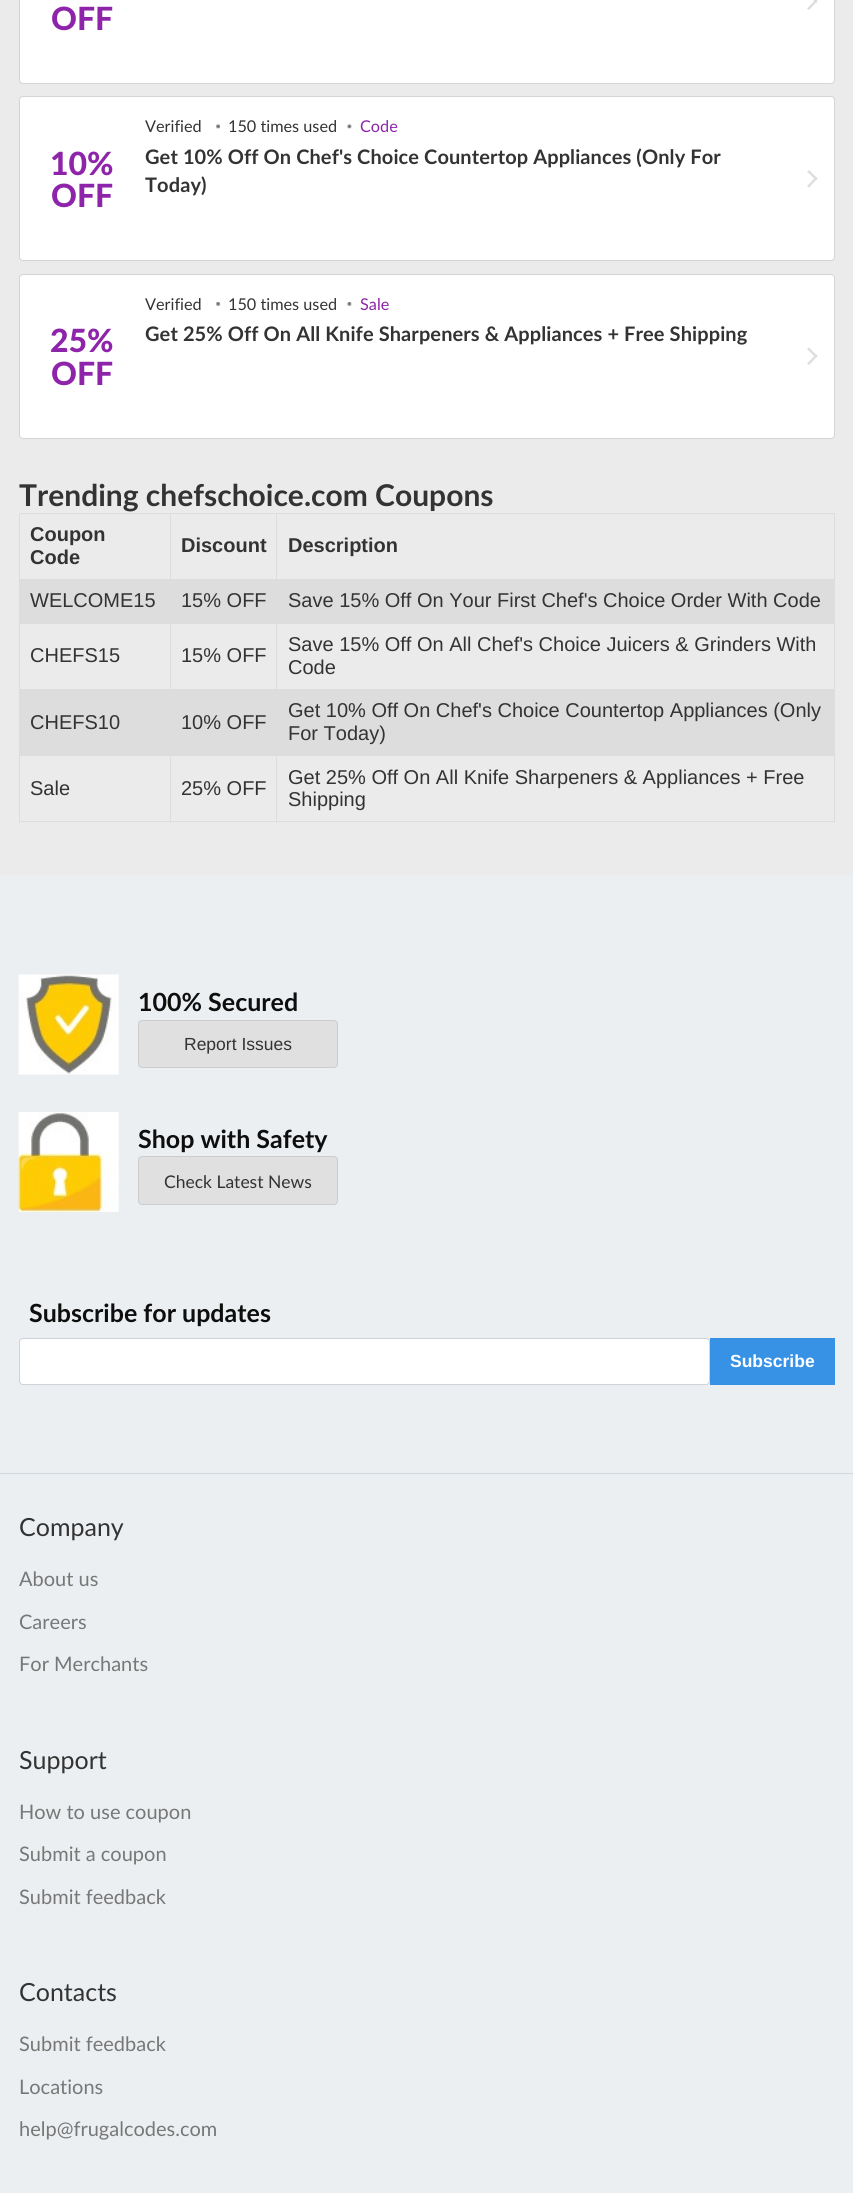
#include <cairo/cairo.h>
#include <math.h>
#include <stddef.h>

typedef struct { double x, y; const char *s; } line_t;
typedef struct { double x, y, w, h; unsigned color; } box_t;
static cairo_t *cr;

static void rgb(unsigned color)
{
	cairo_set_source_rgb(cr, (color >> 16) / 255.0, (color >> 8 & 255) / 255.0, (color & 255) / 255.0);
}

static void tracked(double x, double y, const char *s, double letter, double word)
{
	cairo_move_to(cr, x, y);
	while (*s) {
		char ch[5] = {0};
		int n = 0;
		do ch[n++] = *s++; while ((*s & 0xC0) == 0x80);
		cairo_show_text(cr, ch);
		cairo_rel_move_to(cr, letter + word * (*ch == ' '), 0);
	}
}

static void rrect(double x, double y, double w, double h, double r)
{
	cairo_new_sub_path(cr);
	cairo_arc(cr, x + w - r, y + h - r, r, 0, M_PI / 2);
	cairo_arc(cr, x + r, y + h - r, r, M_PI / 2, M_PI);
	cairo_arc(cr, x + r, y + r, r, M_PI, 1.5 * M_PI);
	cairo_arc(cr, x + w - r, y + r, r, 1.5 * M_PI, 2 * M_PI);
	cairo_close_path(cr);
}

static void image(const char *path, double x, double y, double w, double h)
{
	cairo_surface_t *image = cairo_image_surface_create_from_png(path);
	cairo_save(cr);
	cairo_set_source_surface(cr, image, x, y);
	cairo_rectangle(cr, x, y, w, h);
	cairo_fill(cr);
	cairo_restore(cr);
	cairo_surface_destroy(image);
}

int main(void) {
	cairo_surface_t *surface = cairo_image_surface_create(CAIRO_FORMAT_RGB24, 853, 2193);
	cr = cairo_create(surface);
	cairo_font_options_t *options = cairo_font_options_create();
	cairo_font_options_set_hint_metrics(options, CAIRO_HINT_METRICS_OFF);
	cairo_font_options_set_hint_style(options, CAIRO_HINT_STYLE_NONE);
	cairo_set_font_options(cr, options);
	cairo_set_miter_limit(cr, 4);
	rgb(0xebebeb);
	cairo_paint(cr);
	rgb(0xffffff);
	rrect(19.5, -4.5, 815, 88, 3.5);
	cairo_fill_preserve(cr);
	rgb(0xd4d4d4);
	cairo_set_line_width(cr, 1);
	cairo_stroke(cr);
	rgb(0xdddddd);
	cairo_new_path(cr);
	cairo_move_to(cr, 809, -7.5);
	cairo_line_to(cr, 817.5, 1);
	cairo_line_to(cr, 816, 3);
	cairo_line_to(cr, 807, -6);
	cairo_close_path(cr);
	cairo_fill(cr);
	cairo_new_path(cr);
	cairo_move_to(cr, 816, -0.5);
	cairo_line_to(cr, 817.5, 1);
	cairo_line_to(cr, 809, 10);
	cairo_line_to(cr, 807, 8.5);
	cairo_close_path(cr);
	cairo_fill(cr);
	rgb(0xffffff);
	rrect(19.5, 96.5, 815, 164, 3.5);
	cairo_fill_preserve(cr);
	rgb(0xd4d4d4);
	cairo_stroke(cr);
	image("img/1.png", 216, 124, 4, 5);
	image("img/2.png", 347, 124, 5, 5);
	rgb(0xdddddd);
	cairo_new_path(cr);
	cairo_move_to(cr, 809, 170);
	cairo_line_to(cr, 817.5, 178.5);
	cairo_line_to(cr, 816, 180.5);
	cairo_line_to(cr, 807, 171.5);
	cairo_close_path(cr);
	cairo_fill(cr);
	cairo_new_path(cr);
	cairo_move_to(cr, 816, 177);
	cairo_line_to(cr, 817.5, 178.5);
	cairo_line_to(cr, 809, 187.5);
	cairo_line_to(cr, 807, 186);
	cairo_close_path(cr);
	cairo_fill(cr);
	rgb(0xffffff);
	rrect(19.5, 274.5, 815, 164, 3.5);
	cairo_fill_preserve(cr);
	rgb(0xd4d4d4);
	cairo_stroke(cr);
	image("img/3.png", 216, 302, 4, 4);
	image("img/4.png", 347, 302, 5, 4);
	rgb(0xdddddd);
	cairo_new_path(cr);
	cairo_move_to(cr, 809, 347.5);
	cairo_line_to(cr, 817.5, 356);
	cairo_line_to(cr, 816, 358);
	cairo_line_to(cr, 807, 349);
	cairo_close_path(cr);
	cairo_fill(cr);
	cairo_new_path(cr);
	cairo_move_to(cr, 816, 354.5);
	cairo_line_to(cr, 817.5, 356);
	cairo_line_to(cr, 809, 365);
	cairo_line_to(cr, 807, 363.5);
	cairo_close_path(cr);
	cairo_fill(cr);
	{
		static const box_t items[] = {
			{276, 513, 559, 1, 0xdddddd},
			{20, 579, 815, 44, 0xdddddd},
			{276, 513, 1, 67, 0xdddddd},
			{170, 513, 108, 1, 0xdddddd},
			{170, 513, 1, 67, 0xdddddd},
			{19, 513, 152, 1, 0xdddddd},
			{276, 623, 559, 1, 0xdddddd},
			{20, 689, 815, 66, 0xdddddd},
			{276, 623, 1, 67, 0xdddddd},
			{170, 623, 108, 1, 0xdddddd},
			{170, 623, 1, 67, 0xdddddd},
			{19, 623, 152, 1, 0xdddddd},
			{276, 755, 559, 1, 0xdddddd},
			{834, 755, 1, 68, 0xdddddd},
			{276, 821, 559, 1, 0xdddddd},
			{276, 755, 1, 68, 0xdddddd},
			{170, 755, 108, 1, 0xdddddd},
			{170, 821, 108, 1, 0xdddddd},
			{170, 755, 1, 68, 0xdddddd},
			{19, 755, 152, 1, 0xdddddd},
			{19, 821, 152, 1, 0xdddddd},
			{19, 755, 1, 68, 0xdddddd},
			{19, 689, 1, 67, 0xdddddd},
			{19, 623, 1, 67, 0xdddddd},
			{19, 579, 1, 45, 0xdddddd},
			{19, 513, 1, 67, 0xdddddd},
			{834, 513, 1, 67, 0xdddddd},
			{834, 623, 1, 67, 0xdddddd},
			{0, 875, 853, 1318, 0xeceff1},
		};
		for (size_t i = 0; i < sizeof items / sizeof *items; i++) {
			rgb(items[i].color);
			cairo_rectangle(cr, items[i].x, items[i].y, items[i].w, items[i].h);
			cairo_fill(cr);
		}
	}
	image("img/5.png", 18, 974, 101, 101);
	rgb(0xe0e0e0);
	rrect(138.5, 1020.5, 199, 47, 3.5);
	cairo_fill_preserve(cr);
	rgb(0xcccccc);
	cairo_stroke(cr);
	image("img/6.png", 18, 1112, 101, 100);
	rgb(0xe0e0e0);
	rrect(138.5, 1156.5, 199, 48, 3.5);
	cairo_fill_preserve(cr);
	rgb(0xcccccc);
	cairo_stroke(cr);
	rgb(0xffffff);
	rrect(20, 1339, 689, 45, 2.5);
	cairo_fill(cr);
	rrect(19.5, 1338.5, 690, 46, 3.5);
	rgb(0xced4da);
	cairo_stroke(cr);
	rgb(0x3792e6);
	cairo_rectangle(cr, 710, 1338, 125, 47);
	cairo_fill(cr);
	rgb(0xcfd8dc);
	cairo_rectangle(cr, 0, 1473, 853, 1);
	cairo_fill(cr);
	cairo_select_font_face(cr, "Lato Black", CAIRO_FONT_SLANT_NORMAL, CAIRO_FONT_WEIGHT_NORMAL);
	cairo_set_font_size(cr, 32);
	rgb(0x8e24aa);
	{
		static const line_t items[] = {
			{51, 30, "OFF"},
			{50, 175, "10%"},
			{51, 207, "OFF"},
		};
		for (size_t i = 0; i < sizeof items / sizeof *items; i++) {
			cairo_move_to(cr, items[i].x, items[i].y);
			cairo_show_text(cr, items[i].s);
		}
	}
	cairo_select_font_face(cr, "Lato", CAIRO_FONT_SLANT_NORMAL, CAIRO_FONT_WEIGHT_NORMAL);
	cairo_set_font_size(cr, 16.25);
	rgb(0x333333);
	cairo_move_to(cr, 145, 132);
	cairo_show_text(cr, "Verified");
	cairo_move_to(cr, 228, 132);
	cairo_show_text(cr, "150 times used");
	rgb(0x8e24aa);
	cairo_move_to(cr, 360, 132);
	cairo_show_text(cr, "Code");
	cairo_select_font_face(cr, "Lato", CAIRO_FONT_SLANT_NORMAL, CAIRO_FONT_WEIGHT_BOLD);
	cairo_set_font_size(cr, 20);
	rgb(0x333333);
	tracked(145, 164, "Get 10% Off On Chef's Choice Countertop Appliances (Only For", 0.1, 0);
	tracked(145, 192, "Today)", 0.1, 0);
	cairo_select_font_face(cr, "Lato", CAIRO_FONT_SLANT_NORMAL, CAIRO_FONT_WEIGHT_NORMAL);
	cairo_set_font_size(cr, 16.25);
	cairo_move_to(cr, 145, 310);
	cairo_show_text(cr, "Verified");
	cairo_move_to(cr, 228, 310);
	cairo_show_text(cr, "150 times used");
	rgb(0x8e24aa);
	cairo_move_to(cr, 360, 310);
	cairo_show_text(cr, "Sale");
	cairo_select_font_face(cr, "Lato", CAIRO_FONT_SLANT_NORMAL, CAIRO_FONT_WEIGHT_BOLD);
	cairo_set_font_size(cr, 20);
	rgb(0x333333);
	tracked(145, 341, "Get 25% Off On All Knife Sharpeners & Appliances + Free Shipping", 0.1, 0);
	cairo_select_font_face(cr, "Lato Black", CAIRO_FONT_SLANT_NORMAL, CAIRO_FONT_WEIGHT_NORMAL);
	cairo_set_font_size(cr, 32);
	rgb(0x8e24aa);
	cairo_move_to(cr, 50, 352);
	cairo_show_text(cr, "25%");
	cairo_move_to(cr, 51, 385);
	cairo_show_text(cr, "OFF");
	cairo_select_font_face(cr, "Lato", CAIRO_FONT_SLANT_NORMAL, CAIRO_FONT_WEIGHT_BOLD);
	cairo_set_font_size(cr, 30);
	rgb(0x333333);
	cairo_move_to(cr, 19, 506);
	cairo_show_text(cr, "Trending chefschoice.com Coupons");
	cairo_select_font_face(cr, "Liberation Sans", CAIRO_FONT_SLANT_NORMAL, CAIRO_FONT_WEIGHT_BOLD);
	cairo_set_font_size(cr, 20);
	{
		static const line_t items[] = {
			{30, 541, "Coupon"},
			{30, 564, "Code"},
			{181, 552, "Discount"},
			{288, 552, "Description"},
		};
		for (size_t i = 0; i < sizeof items / sizeof *items; i++) {
			cairo_move_to(cr, items[i].x, items[i].y);
			cairo_show_text(cr, items[i].s);
		}
	}
	cairo_select_font_face(cr, "Liberation Sans", CAIRO_FONT_SLANT_NORMAL, CAIRO_FONT_WEIGHT_NORMAL);
	{
		static const line_t items[] = {
			{30, 607, "WELCOME15"},
			{181, 607, "15% OFF"},
			{288, 607, "Save 15% Off On Your First Chef's Choice Order With Code"},
			{30, 662, "CHEFS15"},
			{181, 662, "15% OFF"},
			{288, 651, "Save 15% Off On All Chef's Choice Juicers & Grinders With"},
			{288, 674, "Code"},
			{30, 729, "CHEFS10"},
			{181, 729, "10% OFF"},
			{288, 717, "Get 10% Off On Chef's Choice Countertop Appliances (Only"},
			{288, 740, "For Today)"},
			{30, 795, "Sale"},
			{181, 795, "25% OFF"},
			{288, 784, "Get 25% Off On All Knife Sharpeners & Appliances + Free"},
			{288, 806, "Shipping"},
		};
		for (size_t i = 0; i < sizeof items / sizeof *items; i++) {
			cairo_move_to(cr, items[i].x, items[i].y);
			cairo_show_text(cr, items[i].s);
		}
	}
	cairo_select_font_face(cr, "Lato", CAIRO_FONT_SLANT_NORMAL, CAIRO_FONT_WEIGHT_BOLD);
	cairo_set_font_size(cr, 25);
	rgb(0x0e0e0e);
	cairo_move_to(cr, 138, 1011);
	cairo_show_text(cr, "100% Secured");
	cairo_select_font_face(cr, "Liberation Sans", CAIRO_FONT_SLANT_NORMAL, CAIRO_FONT_WEIGHT_NORMAL);
	cairo_set_font_size(cr, 17.5);
	rgb(0x333333);
	cairo_move_to(cr, 184, 1050);
	cairo_show_text(cr, "Report Issues");
	cairo_select_font_face(cr, "Lato", CAIRO_FONT_SLANT_NORMAL, CAIRO_FONT_WEIGHT_BOLD);
	cairo_set_font_size(cr, 25);
	rgb(0x0e0e0e);
	cairo_move_to(cr, 138, 1148);
	cairo_show_text(cr, "Shop with Safety");
	cairo_select_font_face(cr, "Lato", CAIRO_FONT_SLANT_NORMAL, CAIRO_FONT_WEIGHT_NORMAL);
	cairo_set_font_size(cr, 17.5);
	rgb(0x333333);
	cairo_move_to(cr, 164, 1188);
	cairo_show_text(cr, "Check Latest News");
	cairo_select_font_face(cr, "Lato", CAIRO_FONT_SLANT_NORMAL, CAIRO_FONT_WEIGHT_BOLD);
	cairo_set_font_size(cr, 25);
	rgb(0x0e0e0e);
	cairo_move_to(cr, 29, 1322);
	cairo_show_text(cr, "Subscribe for updates");
	cairo_select_font_face(cr, "Liberation Sans", CAIRO_FONT_SLANT_NORMAL, CAIRO_FONT_WEIGHT_BOLD);
	cairo_set_font_size(cr, 17.5);
	rgb(0xffffff);
	cairo_move_to(cr, 730, 1367);
	cairo_show_text(cr, "Subscribe");
	cairo_select_font_face(cr, "Lato", CAIRO_FONT_SLANT_NORMAL, CAIRO_FONT_WEIGHT_NORMAL);
	cairo_set_font_size(cr, 25);
	rgb(0x333333);
	cairo_move_to(cr, 19, 1536);
	cairo_show_text(cr, "Company");
	cairo_set_font_size(cr, 20);
	rgb(0x777777);
	{
		static const line_t items[] = {
			{19, 1586, "About us"},
			{19, 1629, "Careers"},
			{19, 1671, "For Merchants"},
		};
		for (size_t i = 0; i < sizeof items / sizeof *items; i++) {
			cairo_move_to(cr, items[i].x, items[i].y);
			cairo_show_text(cr, items[i].s);
		}
	}
	cairo_set_font_size(cr, 25);
	rgb(0x333333);
	cairo_move_to(cr, 19, 1769);
	cairo_show_text(cr, "Support");
	cairo_set_font_size(cr, 20);
	rgb(0x777777);
	{
		static const line_t items[] = {
			{19, 1819, "How to use coupon"},
			{19, 1861, "Submit a coupon"},
			{19, 1904, "Submit feedback"},
		};
		for (size_t i = 0; i < sizeof items / sizeof *items; i++) {
			cairo_move_to(cr, items[i].x, items[i].y);
			cairo_show_text(cr, items[i].s);
		}
	}
	cairo_set_font_size(cr, 25);
	rgb(0x333333);
	cairo_move_to(cr, 19, 2001);
	cairo_show_text(cr, "Contacts");
	cairo_set_font_size(cr, 20);
	rgb(0x777777);
	{
		static const line_t items[] = {
			{19, 2051, "Submit feedback"},
			{19, 2094, "Locations"},
			{19, 2136, "help@frugalcodes.com"},
		};
		for (size_t i = 0; i < sizeof items / sizeof *items; i++) {
			cairo_move_to(cr, items[i].x, items[i].y);
			cairo_show_text(cr, items[i].s);
		}
	}
	cairo_surface_write_to_png(surface, "page.png");
	cairo_font_options_destroy(options);
	cairo_destroy(cr);
	cairo_surface_destroy(surface);
	return 0;
}
